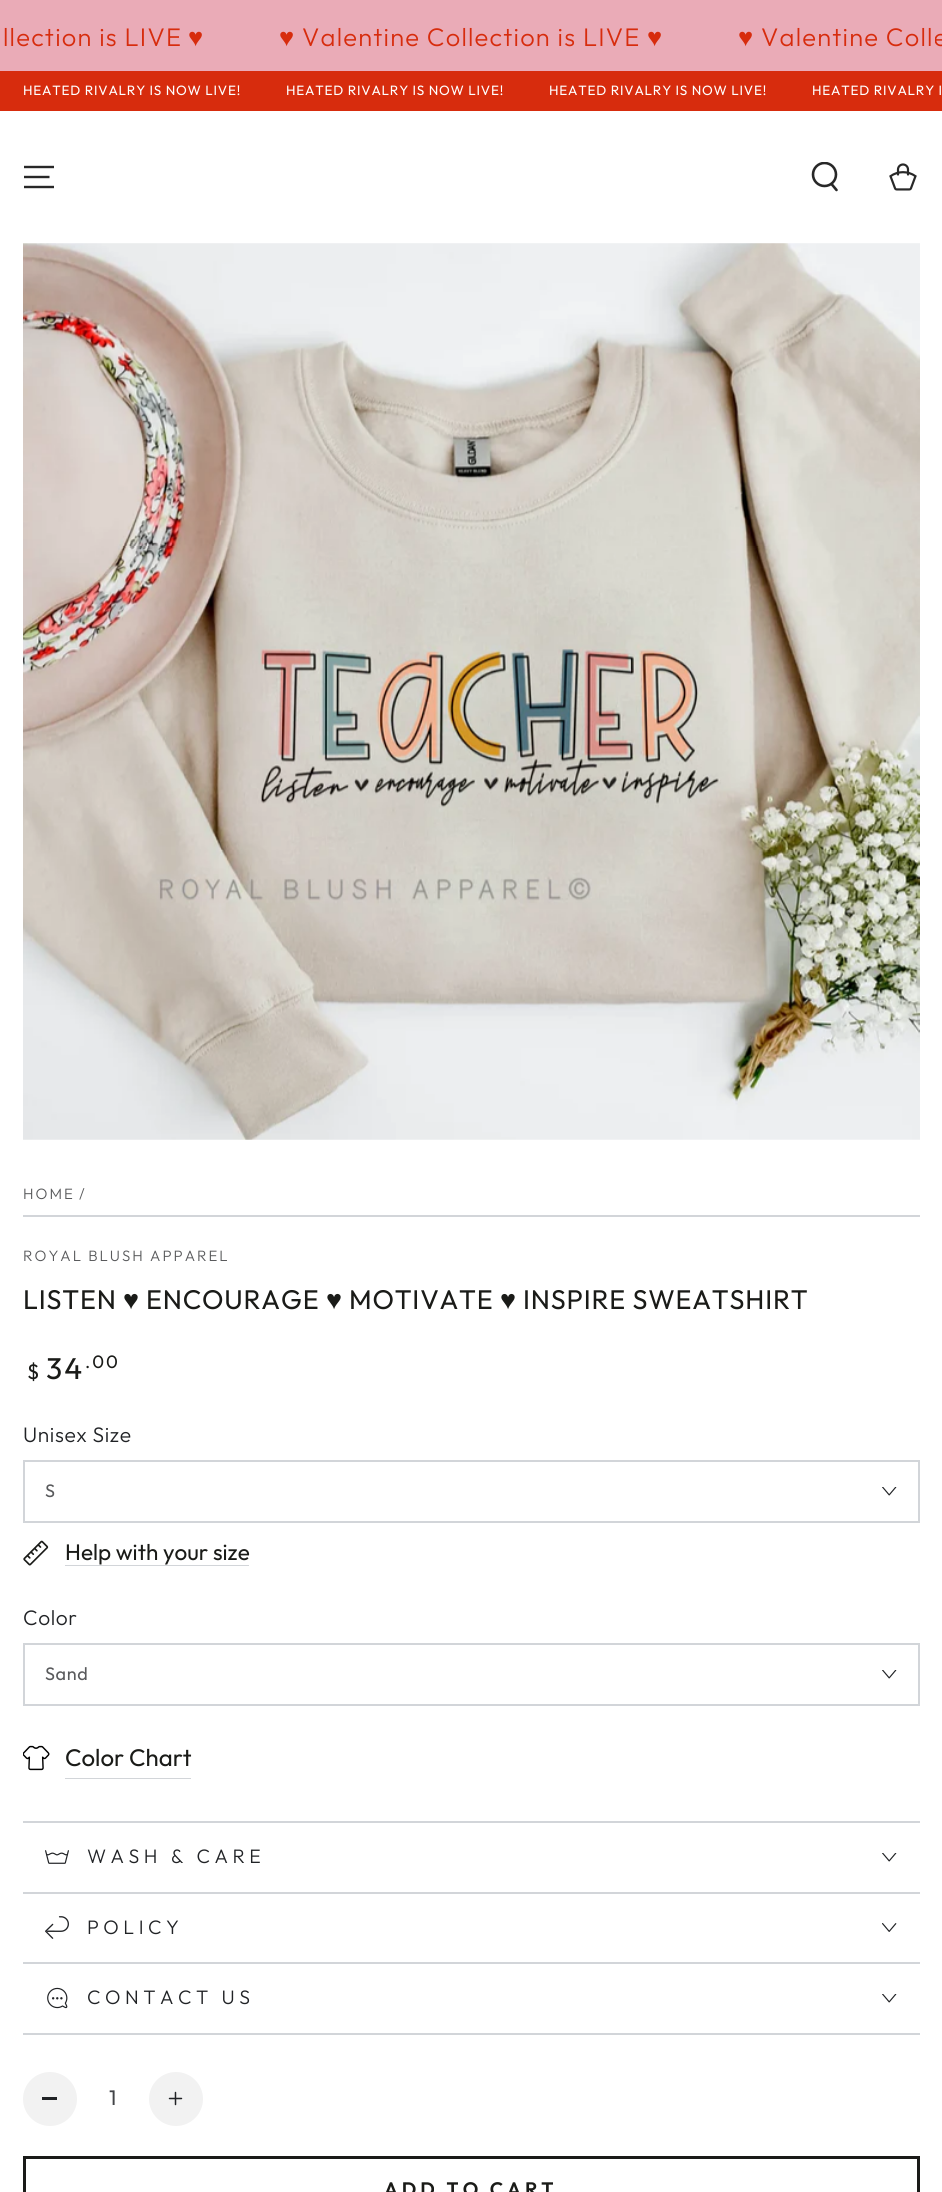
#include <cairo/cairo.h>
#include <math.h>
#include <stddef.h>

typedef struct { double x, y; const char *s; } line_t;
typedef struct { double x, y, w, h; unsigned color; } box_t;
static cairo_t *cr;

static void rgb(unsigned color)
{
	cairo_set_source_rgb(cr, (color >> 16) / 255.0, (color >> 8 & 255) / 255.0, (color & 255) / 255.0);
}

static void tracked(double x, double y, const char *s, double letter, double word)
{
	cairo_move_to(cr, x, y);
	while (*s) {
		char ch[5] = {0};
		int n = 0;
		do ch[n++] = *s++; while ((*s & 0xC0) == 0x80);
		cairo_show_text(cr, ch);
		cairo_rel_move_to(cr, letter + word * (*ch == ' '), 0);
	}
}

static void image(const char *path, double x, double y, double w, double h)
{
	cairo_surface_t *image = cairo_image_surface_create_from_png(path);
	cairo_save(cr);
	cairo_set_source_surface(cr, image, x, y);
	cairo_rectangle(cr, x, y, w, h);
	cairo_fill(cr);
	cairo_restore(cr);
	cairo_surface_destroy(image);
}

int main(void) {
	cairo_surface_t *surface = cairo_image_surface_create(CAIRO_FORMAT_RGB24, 942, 2192);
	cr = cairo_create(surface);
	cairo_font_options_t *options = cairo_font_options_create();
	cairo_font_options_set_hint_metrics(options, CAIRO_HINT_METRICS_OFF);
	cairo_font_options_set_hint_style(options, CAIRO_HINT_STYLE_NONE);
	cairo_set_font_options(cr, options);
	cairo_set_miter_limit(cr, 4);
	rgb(0xffffff);
	cairo_paint(cr);
	rgb(0xeaabb7);
	cairo_rectangle(cr, 0, 0, 942, 71);
	cairo_fill(cr);
	rgb(0xd72c0d);
	cairo_rectangle(cr, 0, 71, 942, 40);
	cairo_fill(cr);
	cairo_new_path(cr);
	cairo_move_to(cr, 24, 187);
	cairo_line_to(cr, 54, 187);
	cairo_move_to(cr, 24, 177);
	cairo_line_to(cr, 49.5, 177);
	cairo_move_to(cr, 24, 167);
	cairo_line_to(cr, 54, 167);
	rgb(0x282828);
	cairo_set_line_width(cr, 2.4);
	cairo_stroke(cr);
	cairo_save(cr);
	cairo_rectangle(cr, 810, 162, 30, 30);
	cairo_clip(cr);
	cairo_arc(cr, 824.5, 174.5, 11.5, 0, 2 * M_PI);
	cairo_set_line_width(cr, 2.6);
	cairo_stroke(cr);
	cairo_restore(cr);
	cairo_new_path(cr);
	cairo_move_to(cr, 831.5, 184);
	cairo_line_to(cr, 836.5, 190);
	cairo_set_line_width(cr, 2.6);
	cairo_set_line_cap(cr, CAIRO_LINE_CAP_ROUND);
	cairo_stroke(cr);
	image("img/1.png", 889, 163, 28, 28);
	image("img/2.png", 23, 243, 897, 897);
	rgb(0xd2d5d9);
	cairo_rectangle(cr, 23, 1215, 897, 2);
	cairo_fill(cr);
	cairo_rectangle(cr, 24, 1461, 895, 61);
	cairo_set_line_width(cr, 2);
	cairo_set_line_cap(cr, CAIRO_LINE_CAP_BUTT);
	cairo_stroke(cr);
	image("img/3.png", 882, 1487, 15, 9);
	image("img/4.png", 23, 1540, 26, 26);
	cairo_rectangle(cr, 65, 1565, 184, 1);
	cairo_fill(cr);
	cairo_rectangle(cr, 24, 1644, 895, 61);
	cairo_stroke(cr);
	image("img/3.png", 882, 1670, 15, 9);
	image("img/5.png", 23, 1745, 27, 26);
	{
		static const box_t items[] = {
			{65, 1778, 126, 1, 0xd2d5d9},
			{23, 1821, 897, 2, 0xd2d5d9},
			{23, 1892, 897, 2, 0xd2d5d9},
		};
		for (size_t i = 0; i < sizeof items / sizeof *items; i++) {
			rgb(items[i].color);
			cairo_rectangle(cr, items[i].x, items[i].y, items[i].w, items[i].h);
			cairo_fill(cr);
		}
	}
	image("img/6.png", 45, 1850, 24, 14);
	image("img/3.png", 882, 1853, 15, 9);
	cairo_rectangle(cr, 23, 1962, 897, 2);
	cairo_fill(cr);
	image("img/7.png", 45, 1916, 24, 23);
	image("img/8.png", 882, 1923, 15, 9);
	cairo_rectangle(cr, 23, 2033, 897, 2);
	cairo_fill(cr);
	image("img/9.png", 47, 1987, 21, 22);
	image("img/3.png", 882, 1994, 15, 9);
	rgb(0xf2f2f2);
	cairo_arc(cr, 50, 2099, 27, 0, 2 * M_PI);
	cairo_fill(cr);
	rgb(0x212326);
	cairo_rectangle(cr, 42, 2097, 15, 3);
	cairo_fill(cr);
	rgb(0xf2f2f2);
	cairo_arc(cr, 176, 2099, 27, 0, 2 * M_PI);
	cairo_fill(cr);
	image("img/10.png", 168, 2091, 15, 15);
	cairo_rectangle(cr, 24.5, 2157.5, 894, 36);
	rgb(0x1a1b18);
	cairo_set_line_width(cr, 3);
	cairo_stroke(cr);
	cairo_select_font_face(cr, "Outfit Light", CAIRO_FONT_SLANT_NORMAL, CAIRO_FONT_WEIGHT_NORMAL);
	cairo_set_font_size(cr, 25.5);
	rgb(0xd72c0d);
	tracked(3, 46, "llection is LIVE", 1.2, 0);
	cairo_select_font_face(cr, "Liberation Sans", CAIRO_FONT_SLANT_NORMAL, CAIRO_FONT_WEIGHT_NORMAL);
	tracked(188, 46, "♥", 1.2, 0);
	tracked(279, 46, "♥", 1.2, 0);
	cairo_select_font_face(cr, "Outfit Light", CAIRO_FONT_SLANT_NORMAL, CAIRO_FONT_WEIGHT_NORMAL);
	tracked(302, 46, "Valentine Collection is LIVE", 1.2, 0);
	cairo_select_font_face(cr, "Liberation Sans", CAIRO_FONT_SLANT_NORMAL, CAIRO_FONT_WEIGHT_NORMAL);
	tracked(647, 46, "♥", 1.2, 0);
	tracked(738, 46, "♥", 1.2, 0);
	cairo_select_font_face(cr, "Outfit Light", CAIRO_FONT_SLANT_NORMAL, CAIRO_FONT_WEIGHT_NORMAL);
	tracked(761, 46, "Valentine Colle", 1.2, 0);
	cairo_select_font_face(cr, "Outfit", CAIRO_FONT_SLANT_NORMAL, CAIRO_FONT_WEIGHT_NORMAL);
	cairo_set_font_size(cr, 13.5);
	rgb(0xffffff);
	{
		static const line_t items[] = {
			{23, 95, "HEATED RIVALRY IS NOW LIVE!"},
			{286, 95, "HEATED RIVALRY IS NOW LIVE!"},
			{549, 95, "HEATED RIVALRY IS NOW LIVE!"},
			{812, 95, "HEATED RIVALRY I"},
		};
		for (size_t i = 0; i < sizeof items / sizeof *items; i++) {
			tracked(items[i].x, items[i].y, items[i].s, 0.8, 0);
		}
	}
	cairo_select_font_face(cr, "Outfit Light", CAIRO_FONT_SLANT_NORMAL, CAIRO_FONT_WEIGHT_NORMAL);
	cairo_set_font_size(cr, 15);
	rgb(0x595a5c);
	{
		static const line_t items[] = {
			{23, 1199, "HOME"},
			{79, 1199, "/"},
			{23, 1261, "ROYAL BLUSH APPAREL"},
		};
		for (size_t i = 0; i < sizeof items / sizeof *items; i++) {
			tracked(items[i].x, items[i].y, items[i].s, 2, 0);
		}
	}
	cairo_select_font_face(cr, "Outfit", CAIRO_FONT_SLANT_NORMAL, CAIRO_FONT_WEIGHT_NORMAL);
	cairo_set_font_size(cr, 27);
	rgb(0x1a1b18);
	tracked(23, 1309, "LISTEN", 0.8, 0);
	cairo_select_font_face(cr, "Liberation Sans", CAIRO_FONT_SLANT_NORMAL, CAIRO_FONT_WEIGHT_NORMAL);
	tracked(123, 1309, "♥", 0.8, 0);
	cairo_select_font_face(cr, "Outfit", CAIRO_FONT_SLANT_NORMAL, CAIRO_FONT_WEIGHT_NORMAL);
	tracked(146, 1309, "ENCOURAGE", 0.8, 0);
	cairo_select_font_face(cr, "Liberation Sans", CAIRO_FONT_SLANT_NORMAL, CAIRO_FONT_WEIGHT_NORMAL);
	tracked(326, 1309, "♥", 0.8, 0);
	cairo_select_font_face(cr, "Outfit", CAIRO_FONT_SLANT_NORMAL, CAIRO_FONT_WEIGHT_NORMAL);
	tracked(349, 1309, "MOTIVATE", 0.8, 0);
	cairo_select_font_face(cr, "Liberation Sans", CAIRO_FONT_SLANT_NORMAL, CAIRO_FONT_WEIGHT_NORMAL);
	tracked(500, 1309, "♥", 0.8, 0);
	cairo_select_font_face(cr, "Outfit", CAIRO_FONT_SLANT_NORMAL, CAIRO_FONT_WEIGHT_NORMAL);
	tracked(523, 1309, "INSPIRE SWEATSHIRT", 0.8, 0);
	cairo_set_font_size(cr, 21);
	tracked(27, 1379, "$", 2, 0);
	cairo_set_font_size(cr, 30);
	tracked(46, 1379, "34", 2, 0);
	cairo_set_font_size(cr, 18);
	tracked(85, 1368, ".00", 2, 0);
	cairo_select_font_face(cr, "Outfit Light", CAIRO_FONT_SLANT_NORMAL, CAIRO_FONT_WEIGHT_NORMAL);
	cairo_set_font_size(cr, 21);
	rgb(0x212326);
	tracked(23, 1442, "Unisex Size", 0.6, 0);
	cairo_select_font_face(cr, "Outfit", CAIRO_FONT_SLANT_NORMAL, CAIRO_FONT_WEIGHT_NORMAL);
	cairo_set_font_size(cr, 18);
	rgb(0x595a5c);
	tracked(45, 1497, "S", 0.6, 0);
	cairo_set_font_size(cr, 22.5);
	rgb(0x1a1b18);
	cairo_move_to(cr, 65, 1560);
	cairo_show_text(cr, "Help with your size");
	cairo_select_font_face(cr, "Outfit Light", CAIRO_FONT_SLANT_NORMAL, CAIRO_FONT_WEIGHT_NORMAL);
	cairo_set_font_size(cr, 21);
	rgb(0x212326);
	tracked(23, 1625, "Color", 0.6, 0);
	cairo_select_font_face(cr, "Outfit", CAIRO_FONT_SLANT_NORMAL, CAIRO_FONT_WEIGHT_NORMAL);
	cairo_set_font_size(cr, 18);
	rgb(0x595a5c);
	tracked(45, 1680, "Sand", 0.6, 0);
	cairo_set_font_size(cr, 24);
	rgb(0x1a1b18);
	cairo_move_to(cr, 65, 1766);
	cairo_show_text(cr, "Color Chart");
	cairo_select_font_face(cr, "Outfit Light", CAIRO_FONT_SLANT_NORMAL, CAIRO_FONT_WEIGHT_NORMAL);
	cairo_set_font_size(cr, 19.5);
	rgb(0x212326);
	{
		static const line_t items[] = {
			{87, 1863, "WASH & CARE"},
			{87, 1934, "POLICY"},
			{87, 2004, "CONTACT US"},
		};
		for (size_t i = 0; i < sizeof items / sizeof *items; i++) {
			tracked(items[i].x, items[i].y, items[i].s, 4.5, 0);
		}
	}
	cairo_select_font_face(cr, "Outfit", CAIRO_FONT_SLANT_NORMAL, CAIRO_FONT_WEIGHT_NORMAL);
	cairo_set_font_size(cr, 21);
	rgb(0x424447);
	cairo_move_to(cr, 109, 2105);
	cairo_show_text(cr, "1");
	cairo_select_font_face(cr, "Outfit SemiBold", CAIRO_FONT_SLANT_NORMAL, CAIRO_FONT_WEIGHT_NORMAL);
	cairo_set_font_size(cr, 19.5);
	rgb(0x1a1b18);
	tracked(384, 2196, "ADD TO CART", 3.9, 0);
	cairo_surface_write_to_png(surface, "page.png");
	cairo_font_options_destroy(options);
	cairo_destroy(cr);
	cairo_surface_destroy(surface);
	return 0;
}
